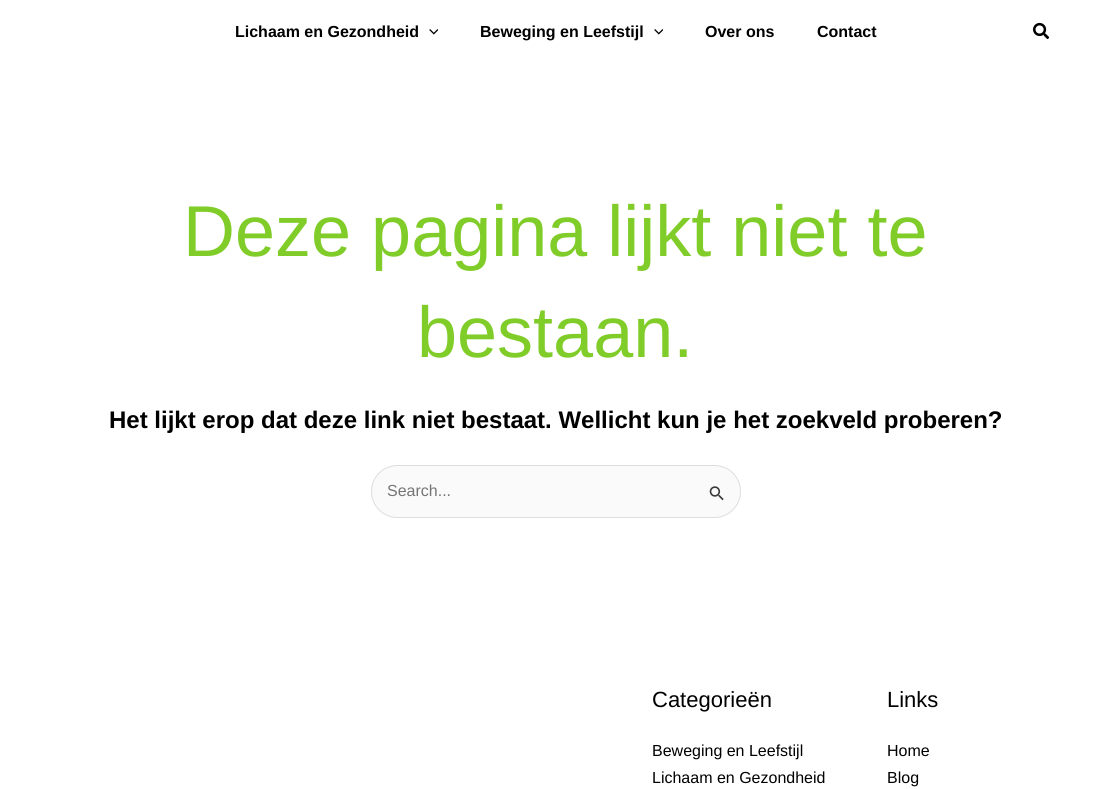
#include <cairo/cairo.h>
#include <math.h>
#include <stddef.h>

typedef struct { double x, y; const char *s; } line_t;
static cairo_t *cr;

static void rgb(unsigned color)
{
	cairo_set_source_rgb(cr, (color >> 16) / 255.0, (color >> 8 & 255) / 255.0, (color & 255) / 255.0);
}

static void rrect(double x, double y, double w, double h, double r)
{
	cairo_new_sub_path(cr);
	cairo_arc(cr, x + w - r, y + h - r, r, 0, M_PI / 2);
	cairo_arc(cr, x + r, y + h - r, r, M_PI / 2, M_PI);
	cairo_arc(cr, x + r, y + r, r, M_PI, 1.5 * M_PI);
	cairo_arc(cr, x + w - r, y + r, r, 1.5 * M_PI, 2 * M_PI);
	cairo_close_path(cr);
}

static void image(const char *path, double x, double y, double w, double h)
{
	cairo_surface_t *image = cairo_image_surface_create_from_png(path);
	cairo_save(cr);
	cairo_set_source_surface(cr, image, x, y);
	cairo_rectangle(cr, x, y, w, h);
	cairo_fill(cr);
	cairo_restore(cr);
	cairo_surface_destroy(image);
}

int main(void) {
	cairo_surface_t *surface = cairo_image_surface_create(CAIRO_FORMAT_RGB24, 1111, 789);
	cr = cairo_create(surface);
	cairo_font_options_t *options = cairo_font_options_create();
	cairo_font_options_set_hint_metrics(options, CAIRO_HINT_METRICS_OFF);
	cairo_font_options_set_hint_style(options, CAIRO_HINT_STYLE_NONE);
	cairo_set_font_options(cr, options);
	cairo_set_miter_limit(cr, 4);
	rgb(0xffffff);
	cairo_paint(cr);
	image("img/1.png", 429, 29, 9, 6);
	image("img/1.png", 654, 29, 9, 6);
	image("img/2.png", 1033, 22, 16, 17);
	rgb(0xfafafa);
	rrect(371.5, 465.5, 369, 52, 26);
	cairo_fill_preserve(cr);
	rgb(0xdddddd);
	cairo_set_line_width(cr, 1);
	cairo_stroke(cr);
	image("img/3.png", 709, 486, 15, 15);
	cairo_select_font_face(cr, "Liberation Sans", CAIRO_FONT_SLANT_NORMAL, CAIRO_FONT_WEIGHT_BOLD);
	cairo_set_font_size(cr, 16);
	rgb(0x000000);
	{
		static const line_t items[] = {
			{235, 37, "Lichaam en Gezondheid"},
			{480, 37, "Beweging en Leefstijl"},
			{705, 37, "Over ons"},
			{817, 37, "Contact"},
		};
		for (size_t i = 0; i < sizeof items / sizeof *items; i++) {
			cairo_move_to(cr, items[i].x, items[i].y);
			cairo_show_text(cr, items[i].s);
		}
	}
	cairo_select_font_face(cr, "Liberation Sans", CAIRO_FONT_SLANT_NORMAL, CAIRO_FONT_WEIGHT_NORMAL);
	cairo_set_font_size(cr, 72);
	rgb(0x80cc28);
	cairo_move_to(cr, 183, 256);
	cairo_show_text(cr, "Deze pagina lijkt niet te");
	cairo_move_to(cr, 417, 357);
	cairo_show_text(cr, "bestaan.");
	cairo_select_font_face(cr, "Liberation Sans", CAIRO_FONT_SLANT_NORMAL, CAIRO_FONT_WEIGHT_BOLD);
	cairo_set_font_size(cr, 24);
	rgb(0x000000);
	cairo_move_to(cr, 109, 428);
	cairo_show_text(cr, "Het lijkt erop dat deze link niet bestaat. Wellicht kun je het zoekveld proberen?");
	cairo_select_font_face(cr, "Liberation Sans", CAIRO_FONT_SLANT_NORMAL, CAIRO_FONT_WEIGHT_NORMAL);
	cairo_set_font_size(cr, 16);
	rgb(0x757575);
	cairo_move_to(cr, 387, 496);
	cairo_show_text(cr, "Search...");
	cairo_set_font_size(cr, 22);
	rgb(0x000000);
	cairo_move_to(cr, 652, 707);
	cairo_show_text(cr, "Categorieën");
	cairo_set_font_size(cr, 16);
	cairo_move_to(cr, 652, 756);
	cairo_show_text(cr, "Beweging en Leefstijl");
	cairo_move_to(cr, 652, 783);
	cairo_show_text(cr, "Lichaam en Gezondheid");
	cairo_set_font_size(cr, 22);
	cairo_move_to(cr, 887, 707);
	cairo_show_text(cr, "Links");
	cairo_set_font_size(cr, 16);
	cairo_move_to(cr, 887, 756);
	cairo_show_text(cr, "Home");
	cairo_move_to(cr, 887, 783);
	cairo_show_text(cr, "Blog");
	cairo_surface_write_to_png(surface, "page.png");
	cairo_font_options_destroy(options);
	cairo_destroy(cr);
	cairo_surface_destroy(surface);
	return 0;
}
